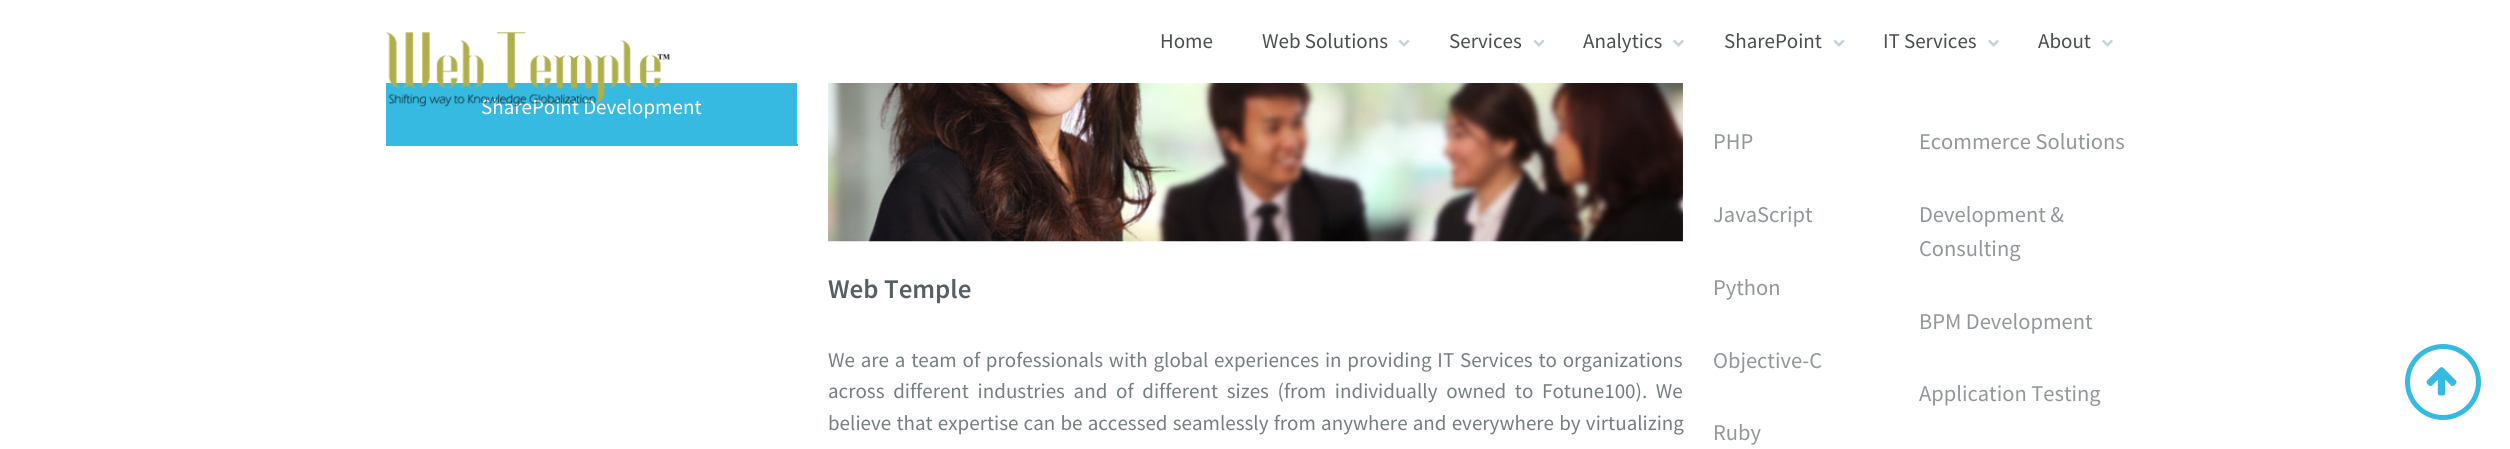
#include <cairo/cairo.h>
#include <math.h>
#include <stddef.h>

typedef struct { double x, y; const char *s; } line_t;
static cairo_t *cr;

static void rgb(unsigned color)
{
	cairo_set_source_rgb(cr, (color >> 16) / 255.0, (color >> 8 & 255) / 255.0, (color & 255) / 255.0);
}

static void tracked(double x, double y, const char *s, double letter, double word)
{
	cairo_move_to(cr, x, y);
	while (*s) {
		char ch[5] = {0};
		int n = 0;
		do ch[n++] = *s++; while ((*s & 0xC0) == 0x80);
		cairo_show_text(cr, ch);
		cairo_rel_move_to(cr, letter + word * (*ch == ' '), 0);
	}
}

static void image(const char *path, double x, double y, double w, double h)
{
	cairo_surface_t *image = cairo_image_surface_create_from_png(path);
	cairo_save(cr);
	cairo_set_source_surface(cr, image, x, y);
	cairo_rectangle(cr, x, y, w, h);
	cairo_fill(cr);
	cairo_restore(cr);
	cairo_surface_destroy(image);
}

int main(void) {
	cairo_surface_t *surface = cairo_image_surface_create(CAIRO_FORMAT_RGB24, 2510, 449);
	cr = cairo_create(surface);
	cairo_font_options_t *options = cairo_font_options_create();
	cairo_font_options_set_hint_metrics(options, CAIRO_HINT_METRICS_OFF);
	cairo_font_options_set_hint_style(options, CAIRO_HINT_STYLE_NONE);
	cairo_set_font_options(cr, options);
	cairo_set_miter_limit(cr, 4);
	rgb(0xffffff);
	cairo_paint(cr);
	image("img/2.png", 1398, 39, 12, 8);
	image("img/2.png", 1533, 39, 12, 8);
	image("img/3.png", 1673, 39, 11, 8);
	image("img/2.png", 1833, 39, 12, 8);
	image("img/3.png", 1988, 39, 11, 8);
	image("img/3.png", 2102, 39, 11, 8);
	rgb(0x36bae2);
	cairo_rectangle(cr, 386, 83, 411, 61);
	cairo_fill(cr);
	cairo_rectangle(cr, 386, 144, 412, 2);
	cairo_fill(cr);
	image("img/4.png", 828, 83, 855, 159);
	cairo_arc(cr, 2443, 382, 35.5, 0, 2 * M_PI);
	cairo_set_line_width(cr, 5);
	cairo_stroke(cr);
	image("img/5.png", 2426, 367, 31, 29);
	cairo_select_font_face(cr, "Source Sans Pro", CAIRO_FONT_SLANT_NORMAL, CAIRO_FONT_WEIGHT_NORMAL);
	cairo_set_font_size(cr, 21);
	rgb(0x4a4e4f);
	{
		static const line_t items[] = {
			{1160, 48, "Home"},
			{1262, 48, "Web Solutions"},
			{1449, 48, "Services"},
			{1583, 48, "Analytics"},
			{1724, 48, "SharePoint"},
			{1883, 48, "IT Services"},
			{2038, 48, "About"},
		};
		for (size_t i = 0; i < sizeof items / sizeof *items; i++) {
			cairo_move_to(cr, items[i].x, items[i].y);
			cairo_show_text(cr, items[i].s);
		}
	}
	rgb(0xffffff);
	cairo_move_to(cr, 481, 114);
	cairo_show_text(cr, "SharePoint Development");
	image("img/1.png", 385, 32, 285, 75);
	cairo_select_font_face(cr, "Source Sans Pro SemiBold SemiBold", CAIRO_FONT_SLANT_NORMAL, CAIRO_FONT_WEIGHT_NORMAL);
	cairo_set_font_size(cr, 27);
	rgb(0x585f63);
	cairo_move_to(cr, 828, 298);
	cairo_show_text(cr, "Web Temple");
	cairo_select_font_face(cr, "Source Sans Pro", CAIRO_FONT_SLANT_NORMAL, CAIRO_FONT_WEIGHT_NORMAL);
	cairo_set_font_size(cr, 21);
	rgb(0x767e81);
	tracked(828, 367, "We are a team of professionals with global experiences in providing IT Services to organizations", 0, 1.6);
	tracked(828, 398, "across different industries and of different sizes (from individually owned to Fotune100). We", 0, 4.5);
	tracked(828, 430, "believe that expertise can be accessed seamlessly from anywhere and everywhere by virtualizing", 0, 1);
	cairo_set_font_size(cr, 22.5);
	rgb(0x929799);
	{
		static const line_t items[] = {
			{1713, 149, "PHP"},
			{1713, 222, "JavaScript"},
			{1713, 295, "Python"},
			{1713, 368, "Objective-C"},
			{1713, 440, "Ruby"},
			{1919, 149, "Ecommerce Solutions"},
			{1919, 222, "Development &"},
			{1919, 256, "Consulting"},
			{1919, 329, "BPM Development"},
			{1919, 401, "Application Testing"},
		};
		for (size_t i = 0; i < sizeof items / sizeof *items; i++) {
			cairo_move_to(cr, items[i].x, items[i].y);
			cairo_show_text(cr, items[i].s);
		}
	}
	cairo_surface_write_to_png(surface, "page.png");
	cairo_font_options_destroy(options);
	cairo_destroy(cr);
	cairo_surface_destroy(surface);
	return 0;
}
